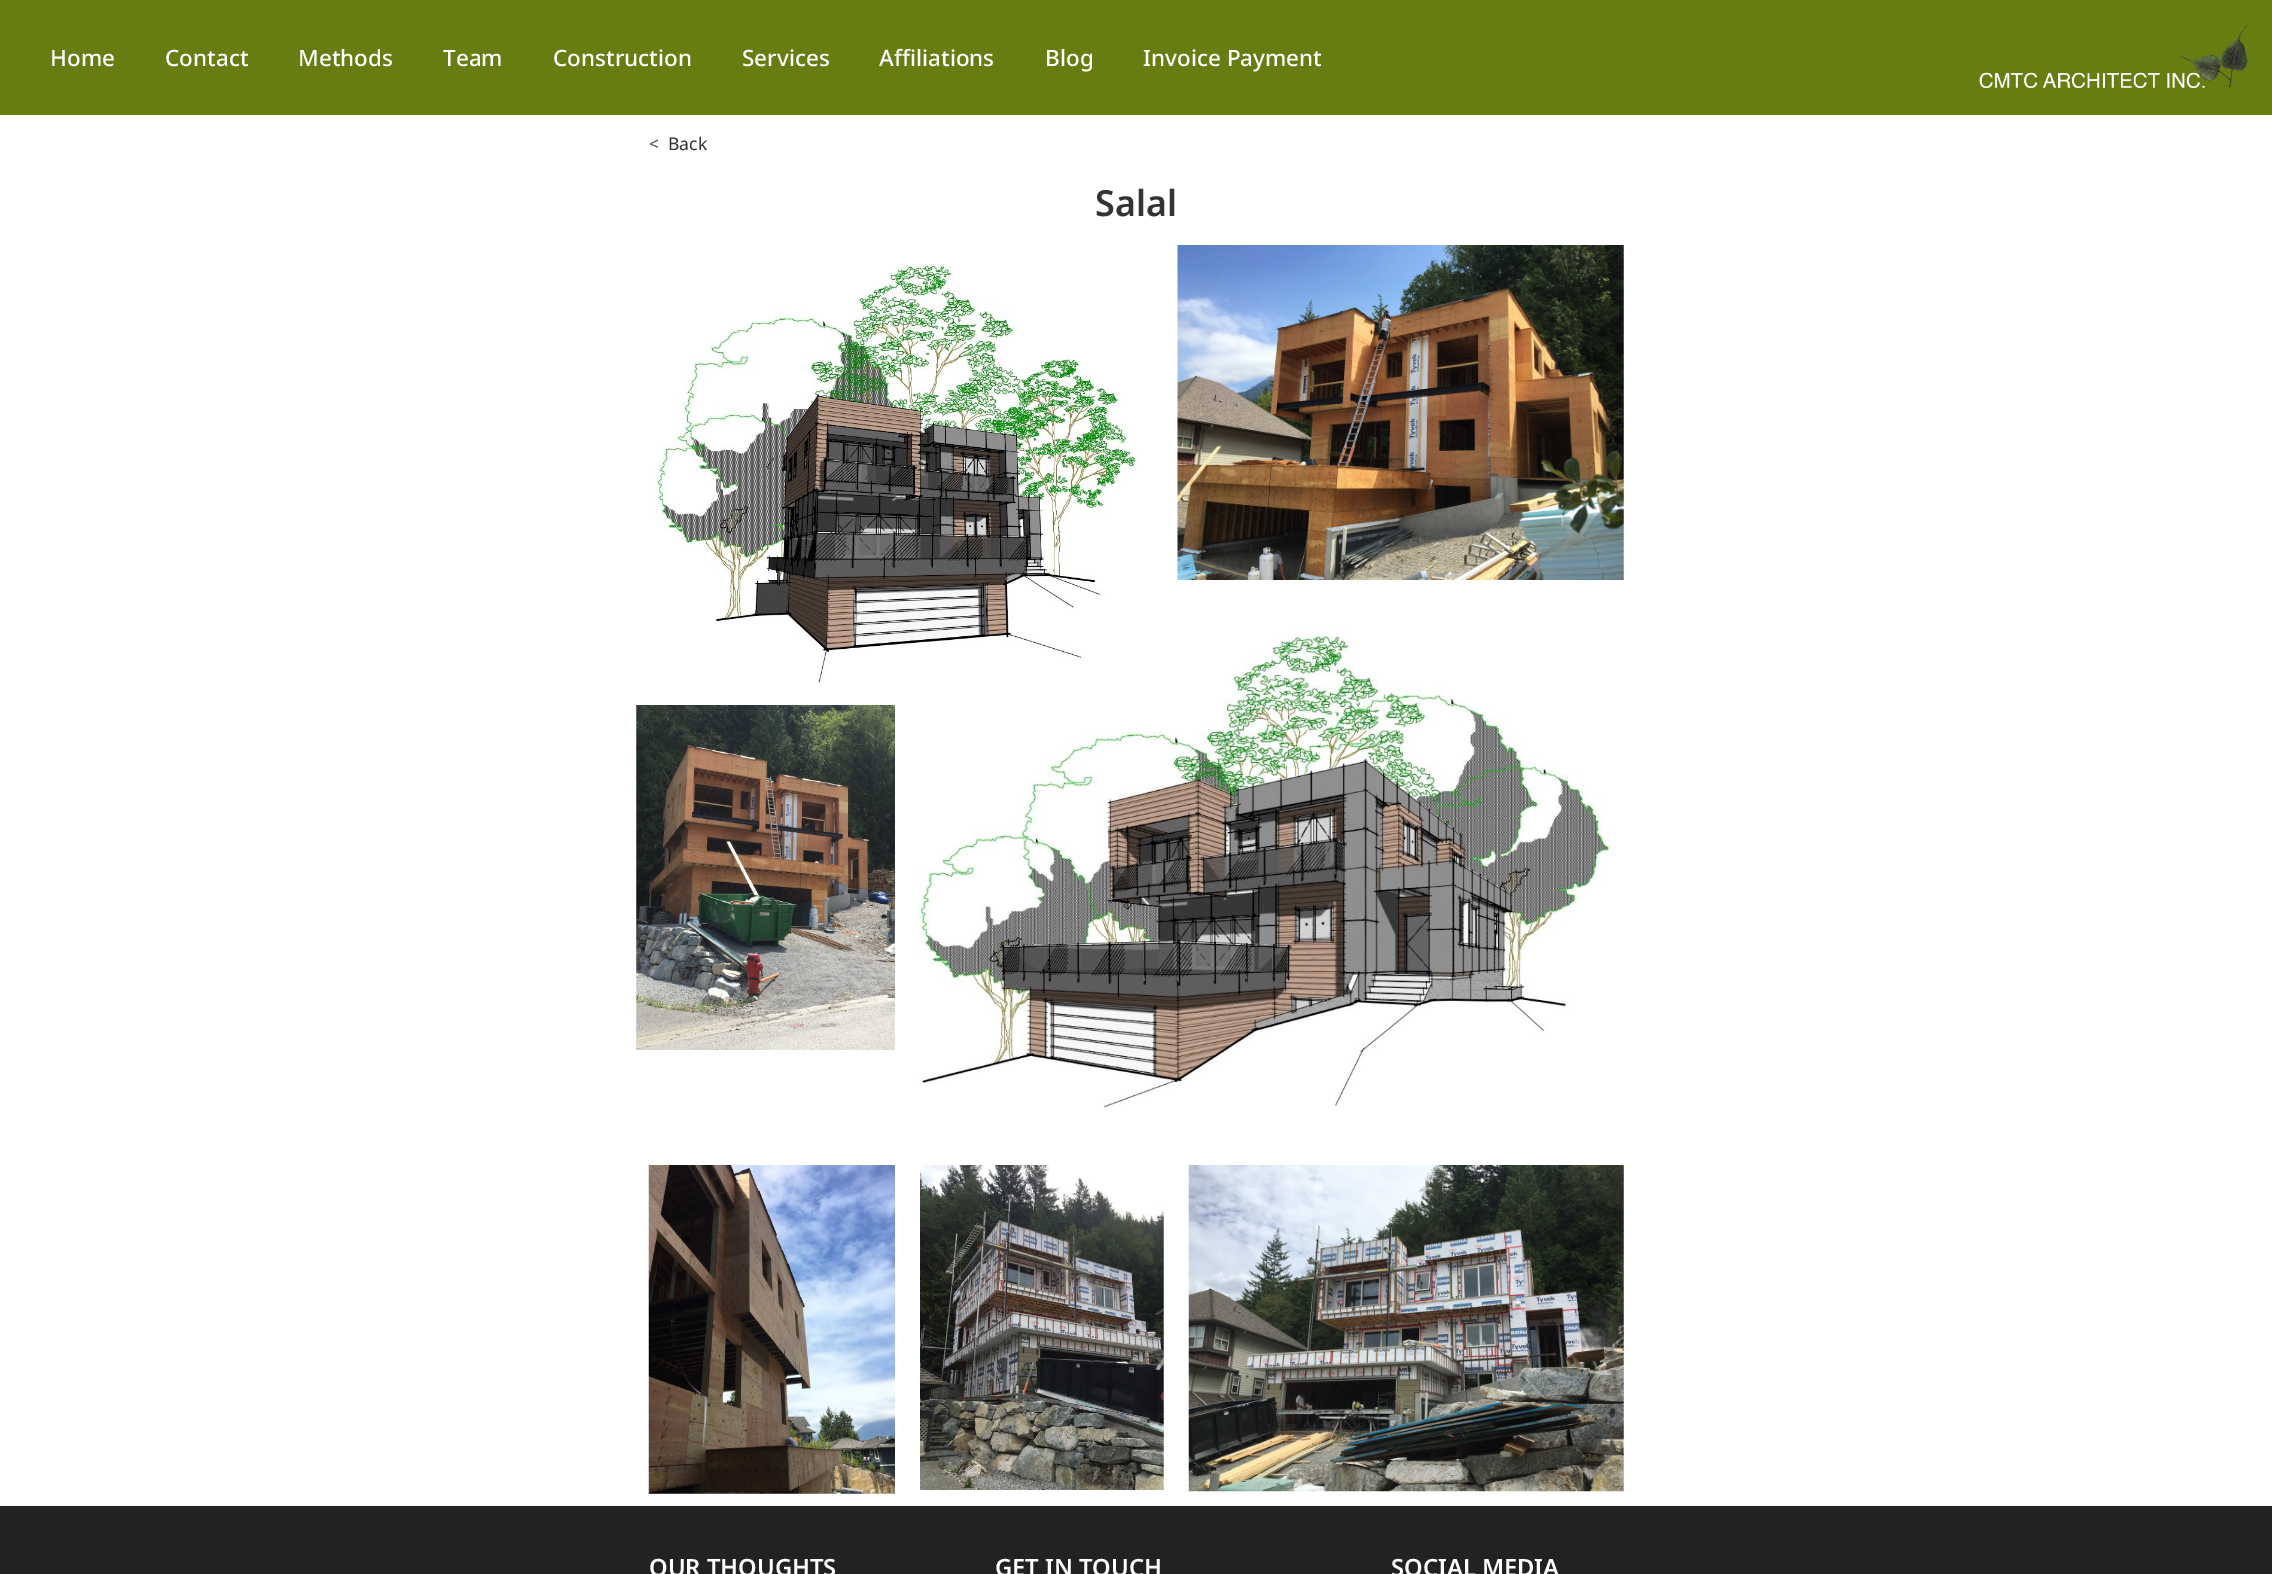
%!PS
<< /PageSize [2272 1574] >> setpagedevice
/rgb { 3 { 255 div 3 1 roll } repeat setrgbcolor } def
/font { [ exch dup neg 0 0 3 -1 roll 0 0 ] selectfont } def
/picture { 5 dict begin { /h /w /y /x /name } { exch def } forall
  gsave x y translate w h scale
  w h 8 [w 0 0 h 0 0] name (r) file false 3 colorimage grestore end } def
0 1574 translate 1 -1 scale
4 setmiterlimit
255 255 255 rgb
0 0 2272 1574 rectfill
102 125 18 rgb
0 0 2272 115 rectfill
(img/1.rgb) 1979 25 269 63 picture
(img/5.rgb) 918 630 695 480 picture
(img/2.rgb) 654 264 483 421 picture
(img/3.rgb) 1177 245 447 335 picture
(img/4.rgb) 636 705 259 345 picture
(img/6.rgb) 648 1165 247 329 picture
(img/7.rgb) 920 1165 244 325 picture
(img/8.rgb) 1188 1165 436 327 picture
34 34 34 rgb
0 1506 2272 68 rectfill
/NotoSans-Medium 22.5 font
255 255 255 rgb
[
  [(Home) 50 66]
  [(Contact) 165 66]
  [(Methods) 298 66]
  [(Team) 443 66]
  [(Construction) 553 66]
  [(Services) 742 66]
  [(Affiliations) 879 66]
  [(Blog) 1045 66]
  [(Invoice Payment) 1143 66]
] { aload pop moveto show } forall
/NotoSans-Regular 17.5 font
74 74 74 rgb
649 150 moveto (<) show
51 51 51 rgb
668 150 moveto (Back) show
/NotoSans-SemiBold 36 font
1095 216 moveto (Salal) show
/NotoSans-SemiBold 23.75 font
255 255 255 rgb
[
  [(OUR THOUGHTS) 649 1576]
  [(GET IN TOUCH) 995 1576]
  [(SOCIAL MEDIA) 1391 1576]
] { aload pop moveto show } forall
showpage
